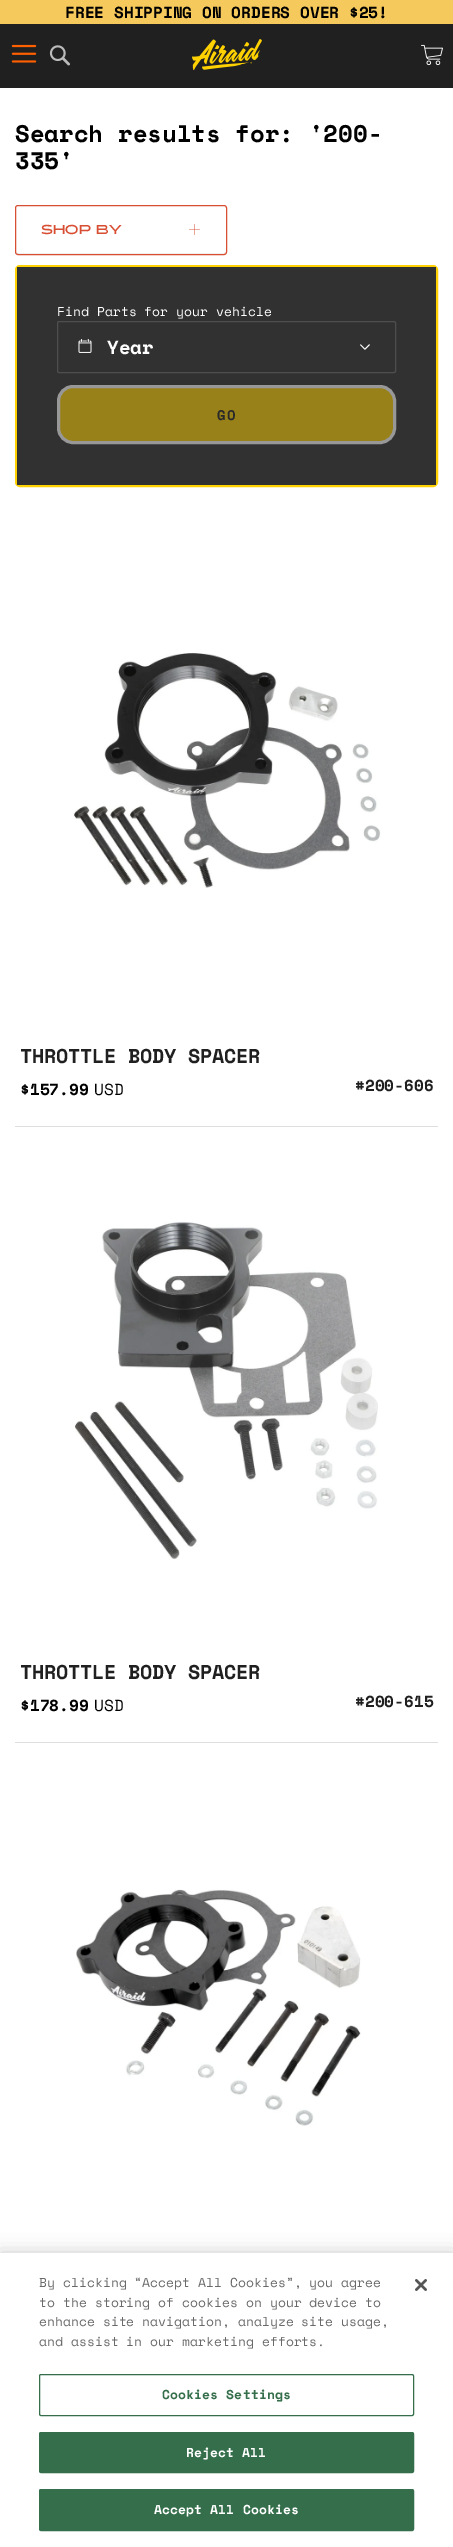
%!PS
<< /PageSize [453 2547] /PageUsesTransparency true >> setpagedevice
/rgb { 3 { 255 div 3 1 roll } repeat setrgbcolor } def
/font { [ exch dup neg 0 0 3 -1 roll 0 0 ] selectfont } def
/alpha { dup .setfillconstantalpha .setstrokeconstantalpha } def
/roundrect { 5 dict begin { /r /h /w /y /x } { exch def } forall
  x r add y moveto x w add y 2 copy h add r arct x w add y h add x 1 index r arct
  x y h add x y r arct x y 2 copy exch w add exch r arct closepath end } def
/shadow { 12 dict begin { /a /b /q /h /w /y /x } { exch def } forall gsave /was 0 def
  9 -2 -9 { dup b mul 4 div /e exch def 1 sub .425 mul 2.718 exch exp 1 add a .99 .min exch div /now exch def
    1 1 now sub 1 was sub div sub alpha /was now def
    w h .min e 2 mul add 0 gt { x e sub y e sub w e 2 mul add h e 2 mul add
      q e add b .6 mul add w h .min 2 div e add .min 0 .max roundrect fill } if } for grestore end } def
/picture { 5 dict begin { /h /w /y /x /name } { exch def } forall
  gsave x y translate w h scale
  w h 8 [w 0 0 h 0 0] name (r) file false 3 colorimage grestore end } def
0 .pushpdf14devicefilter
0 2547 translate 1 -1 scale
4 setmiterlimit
255 255 255 rgb
0 0 453 2547 rectfill
246 201 92 rgb
0 0 453 24 rectfill
32 32 32 rgb
0 24 453 64 rectfill
(img/1.rgb) 11 44 26 19 picture
(img/2.rgb) 49 45 22 21 picture
(img/3.rgb) 192 39 70 31 picture
(img/4.rgb) 421 44 22 22 picture
239 239 239 rgb
16 251 moveto 16 252 16 254 18 254 curveto 224 254 lineto 226 254 226 252 226 251 curveto 226 252 225 253 224 253 curveto 18 253 lineto 17 253 16 252 16 251 curveto closepath fill
215 78 51 rgb
15.5 205.5 211 49 2.5 roundrect stroke
(img/5.rgb) 189 224 11 11 picture
255 209 0 rgb
2 setlinewidth
16 266 421 220 4 roundrect stroke
49 49 49 rgb
17 267 419 218 rectfill
78 78 78 rgb
1 setlinewidth
57.5 321.5 338 51 1.5 roundrect stroke
(img/6.rgb) 78 339 14 14 picture
(img/7.rgb) 360 344 10 6 picture
152 129 25 rgb
58.5 386.5 336 56 14.5 roundrect gsave fill grestore
152 152 152 rgb
3 setlinewidth
stroke
222 222 222 rgb
15 1126 423 1 rectfill
(img/8.rgb) 73 653 308 235 picture
15 1742 423 1 rectfill
(img/9.rgb) 74 1221 304 339 picture
(img/10.rgb) 76 1889 285 237 picture
0 0 0 rgb
0 2253 453 294 0 9 0.2 shadow
255 255 255 rgb
0 2253 453 294 rectfill
52 110 74 rgb
1 setlinewidth
39.5 2374.5 374 41 1.5 roundrect stroke
39.5 2432.5 374 40 1.5 roundrect gsave fill grestore
stroke
39.5 2489.5 374 41 1.5 roundrect gsave fill grestore
stroke
(img/11.rgb) 415 2279 12 12 picture
/SpaceMono-Bold 16 font
0 0 0 rgb
65 18 moveto (FREE SHIPPING ON ORDERS OVER $25!) show
/SpaceMono-Bold 24 font
15 142 moveto (Search results for: '200-) show
15 169 moveto (335') show
/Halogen-Bold 13 font
215 78 51 rgb
41 234 moveto (SHOP BY) show
/SpaceMono-Regular 13 font
255 255 255 rgb
57 316 moveto (Find Parts for your vehicle) show
/SpaceMono-Bold 19 font
107 354 moveto (Year) show
/SpaceMono-Bold 14 font
41 41 41 rgb
217 420 moveto 1 0 (GO) ashow
/SpaceMono-Bold 20 font
32 32 32 rgb
20 1063 moveto -0.25 0 (THROTTLE BODY SPACER) ashow
/SpaceMono-Bold 16 font
0 0 0 rgb
20 1095 moveto ($157.99) show
/SpaceMono-Regular 16 font
94 1095 moveto (USD) show
/SpaceMono-Bold 16 font
32 32 32 rgb
355 1091 moveto (#200-606) show
/SpaceMono-Bold 20 font
20 1679 moveto -0.25 0 (THROTTLE BODY SPACER) ashow
/SpaceMono-Bold 16 font
0 0 0 rgb
20 1711 moveto ($178.99) show
/SpaceMono-Regular 16 font
94 1711 moveto (USD) show
/SpaceMono-Bold 16 font
32 32 32 rgb
355 1707 moveto (#200-615) show
/SpaceMono-Regular 13 font
105 105 105 rgb
[
  [(By clicking “Accept All Cookies”, you agree) 39 2287]
  [(to the storing of cookies on your device to) 39 2307]
  [(enhance site navigation, analyze site usage,) 39 2326]
  [(and assist in our marketing efforts.) 39 2346]
] { aload pop moveto show } forall
/SpaceMono-Bold 13 font
52 110 74 rgb
162 2399 moveto 0.1 0 (Cookies Settings) ashow
255 255 255 rgb
186 2457 moveto 0.1 0 (Reject All) ashow
154 2514 moveto 0.1 0 (Accept All Cookies) ashow
.poppdf14devicefilter showpage
